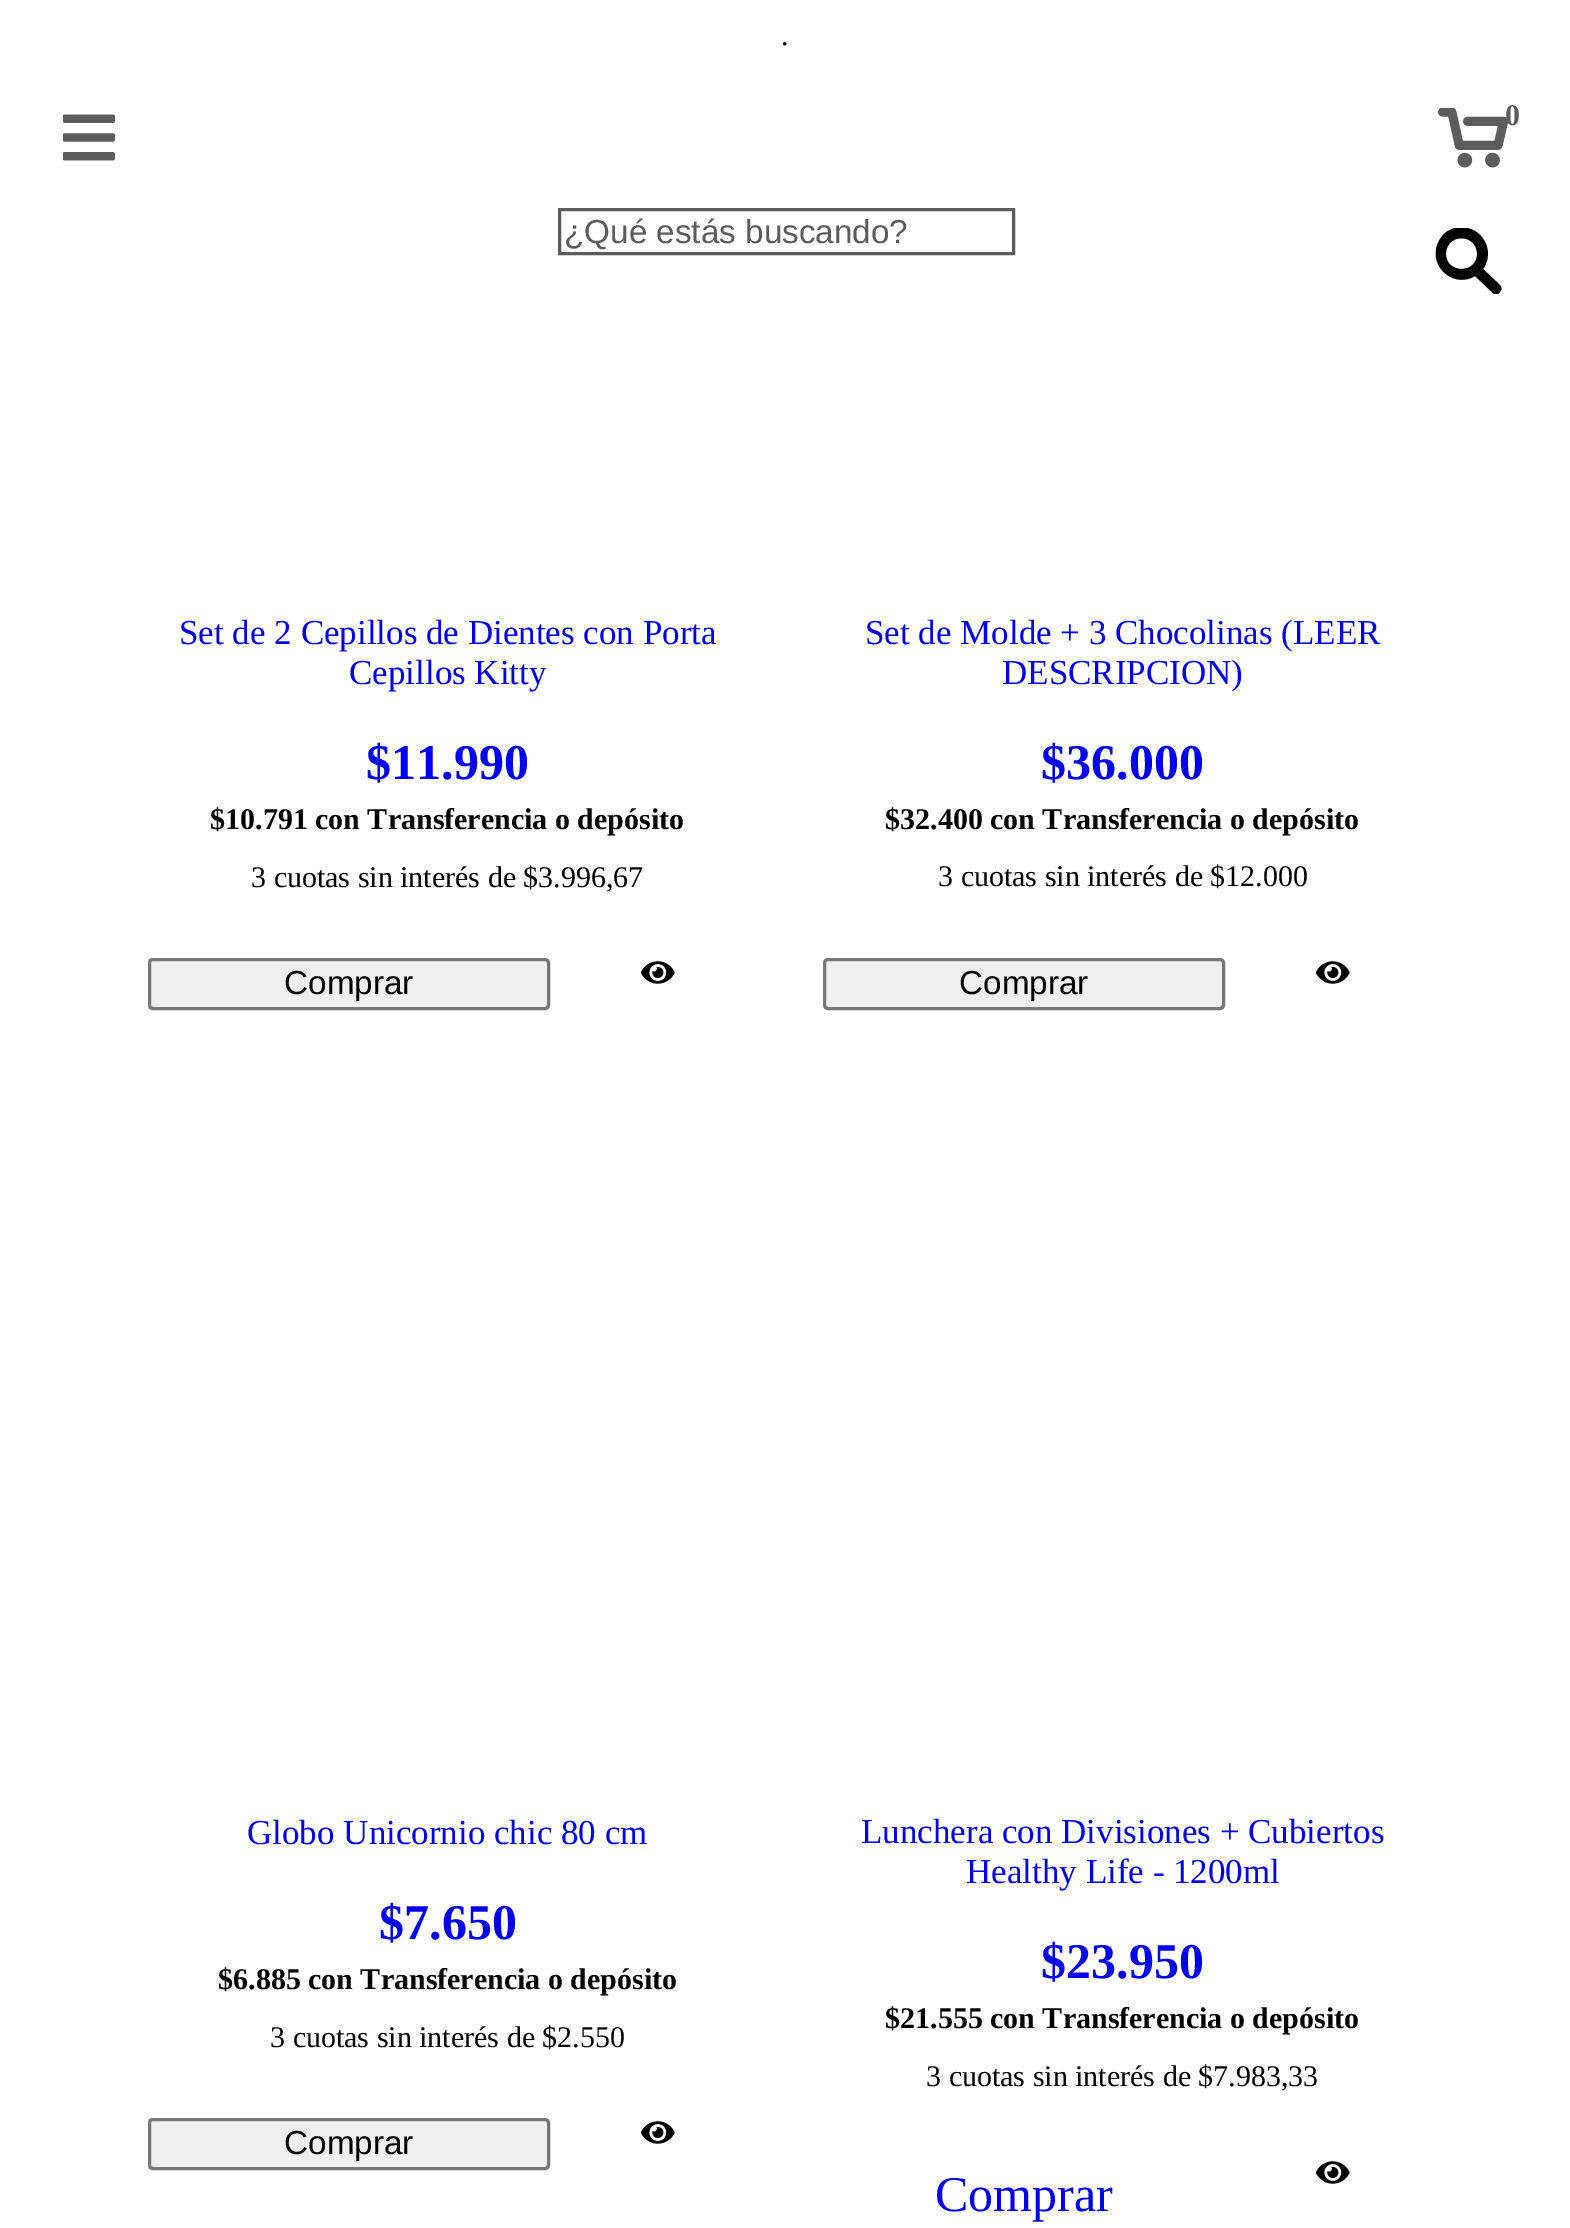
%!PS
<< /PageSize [1570 2228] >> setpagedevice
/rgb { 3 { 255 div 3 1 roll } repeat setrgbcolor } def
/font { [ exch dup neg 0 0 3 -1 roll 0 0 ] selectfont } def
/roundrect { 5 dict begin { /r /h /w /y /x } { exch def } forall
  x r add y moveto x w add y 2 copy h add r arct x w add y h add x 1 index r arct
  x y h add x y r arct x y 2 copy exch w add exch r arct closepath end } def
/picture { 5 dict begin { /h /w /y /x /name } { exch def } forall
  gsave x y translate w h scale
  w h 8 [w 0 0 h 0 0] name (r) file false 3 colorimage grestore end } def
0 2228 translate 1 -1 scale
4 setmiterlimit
255 255 255 rgb
0 0 1570 2228 rectfill
(img/1.rgb) 63 114 52 47 picture
(img/2.rgb) 1438 108 71 60 picture
92 92 92 rgb
3 setlinewidth
559.5 209.5 454 44 rectstroke
gsave
1435 228 67 66 rectclip
0 0 0 rgb
1500 285 moveto 1483 269 lineto 1491 258 1489 243 1479 234 curveto 1469 225 1453 225 1444 234 curveto 1434 244 1433 259 1441 269 curveto 1449 280 1464 283 1475 276 curveto 1494 294 lineto 1499 296 1504 289 1500 285 curveto closepath 1446 254 moveto 1446 233 1477 233 1477 254 curveto 1477 274 1446 274 1446 254 curveto closepath fill
grestore
239 239 239 rgb
149.5 959.5 399 49 3.5 roundrect gsave fill grestore
118 118 118 rgb
stroke
(img/3.rgb) 641 961 34 23 picture
239 239 239 rgb
824.5 959.5 399 49 3.5 roundrect gsave fill grestore
118 118 118 rgb
stroke
(img/3.rgb) 1316 961 34 23 picture
239 239 239 rgb
149.5 2119.5 399 49 3.5 roundrect gsave fill grestore
118 118 118 rgb
stroke
(img/3.rgb) 641 2121 34 23 picture
(img/3.rgb) 1316 2161 34 23 picture
/LiberationSerif-Regular 30 font
0 0 0 rgb
781 45 moveto (.) show
/LiberationSerif-Bold 30 font
92 92 92 rgb
1505 125 moveto (0) show
/LiberationSans-Regular 33.25 font
564 243 moveto (¿Qué estás buscando?) show
/LiberationSerif-Regular 35 font
0 0 238 rgb
179 644 moveto (Set de 2 Cepillos de Dientes con Porta) show
349 684 moveto (Cepillos Kitty) show
/LiberationSerif-Bold 50 font
366 779 moveto ($11.990) show
/LiberationSerif-Bold 30 font
0 0 0 rgb
210 829 moveto ($10.791 con Transferencia o depósito) show
/LiberationSerif-Regular 30 font
251 887 moveto (3 cuotas sin interés de $3.996,67) show
/LiberationSans-Regular 33.25 font
284 994 moveto (Comprar) show
/LiberationSerif-Regular 35 font
0 0 238 rgb
865 644 moveto (Set de Molde + 3 Chocolinas \(LEER) show
1002 684 moveto (DESCRIPCION\)) show
/LiberationSerif-Bold 50 font
1041 779 moveto ($36.000) show
/LiberationSerif-Bold 30 font
0 0 0 rgb
885 829 moveto ($32.400 con Transferencia o depósito) show
/LiberationSerif-Regular 30 font
938 886 moveto (3 cuotas sin interés de $12.000) show
/LiberationSans-Regular 33.25 font
959 994 moveto (Comprar) show
/LiberationSerif-Regular 35 font
0 0 238 rgb
247 1844 moveto (Globo Unicornio chic 80 cm) show
/LiberationSerif-Bold 50 font
379 1939 moveto ($7.650) show
/LiberationSerif-Bold 30 font
0 0 0 rgb
218 1989 moveto ($6.885 con Transferencia o depósito) show
/LiberationSerif-Regular 30 font
270 2047 moveto (3 cuotas sin interés de $2.550) show
/LiberationSans-Regular 33.25 font
284 2154 moveto (Comprar) show
/LiberationSerif-Regular 35 font
0 0 238 rgb
861 1843 moveto (Lunchera con Divisiones + Cubiertos) show
966 1883 moveto (Healthy Life - 1200ml) show
/LiberationSerif-Bold 50 font
1041 1978 moveto ($23.950) show
/LiberationSerif-Bold 30 font
0 0 0 rgb
885 2028 moveto ($21.555 con Transferencia o depósito) show
/LiberationSerif-Regular 30 font
926 2086 moveto (3 cuotas sin interés de $7.983,33) show
/LiberationSerif-Regular 50 font
0 0 238 rgb
935 2211 moveto (Comprar) show
showpage
